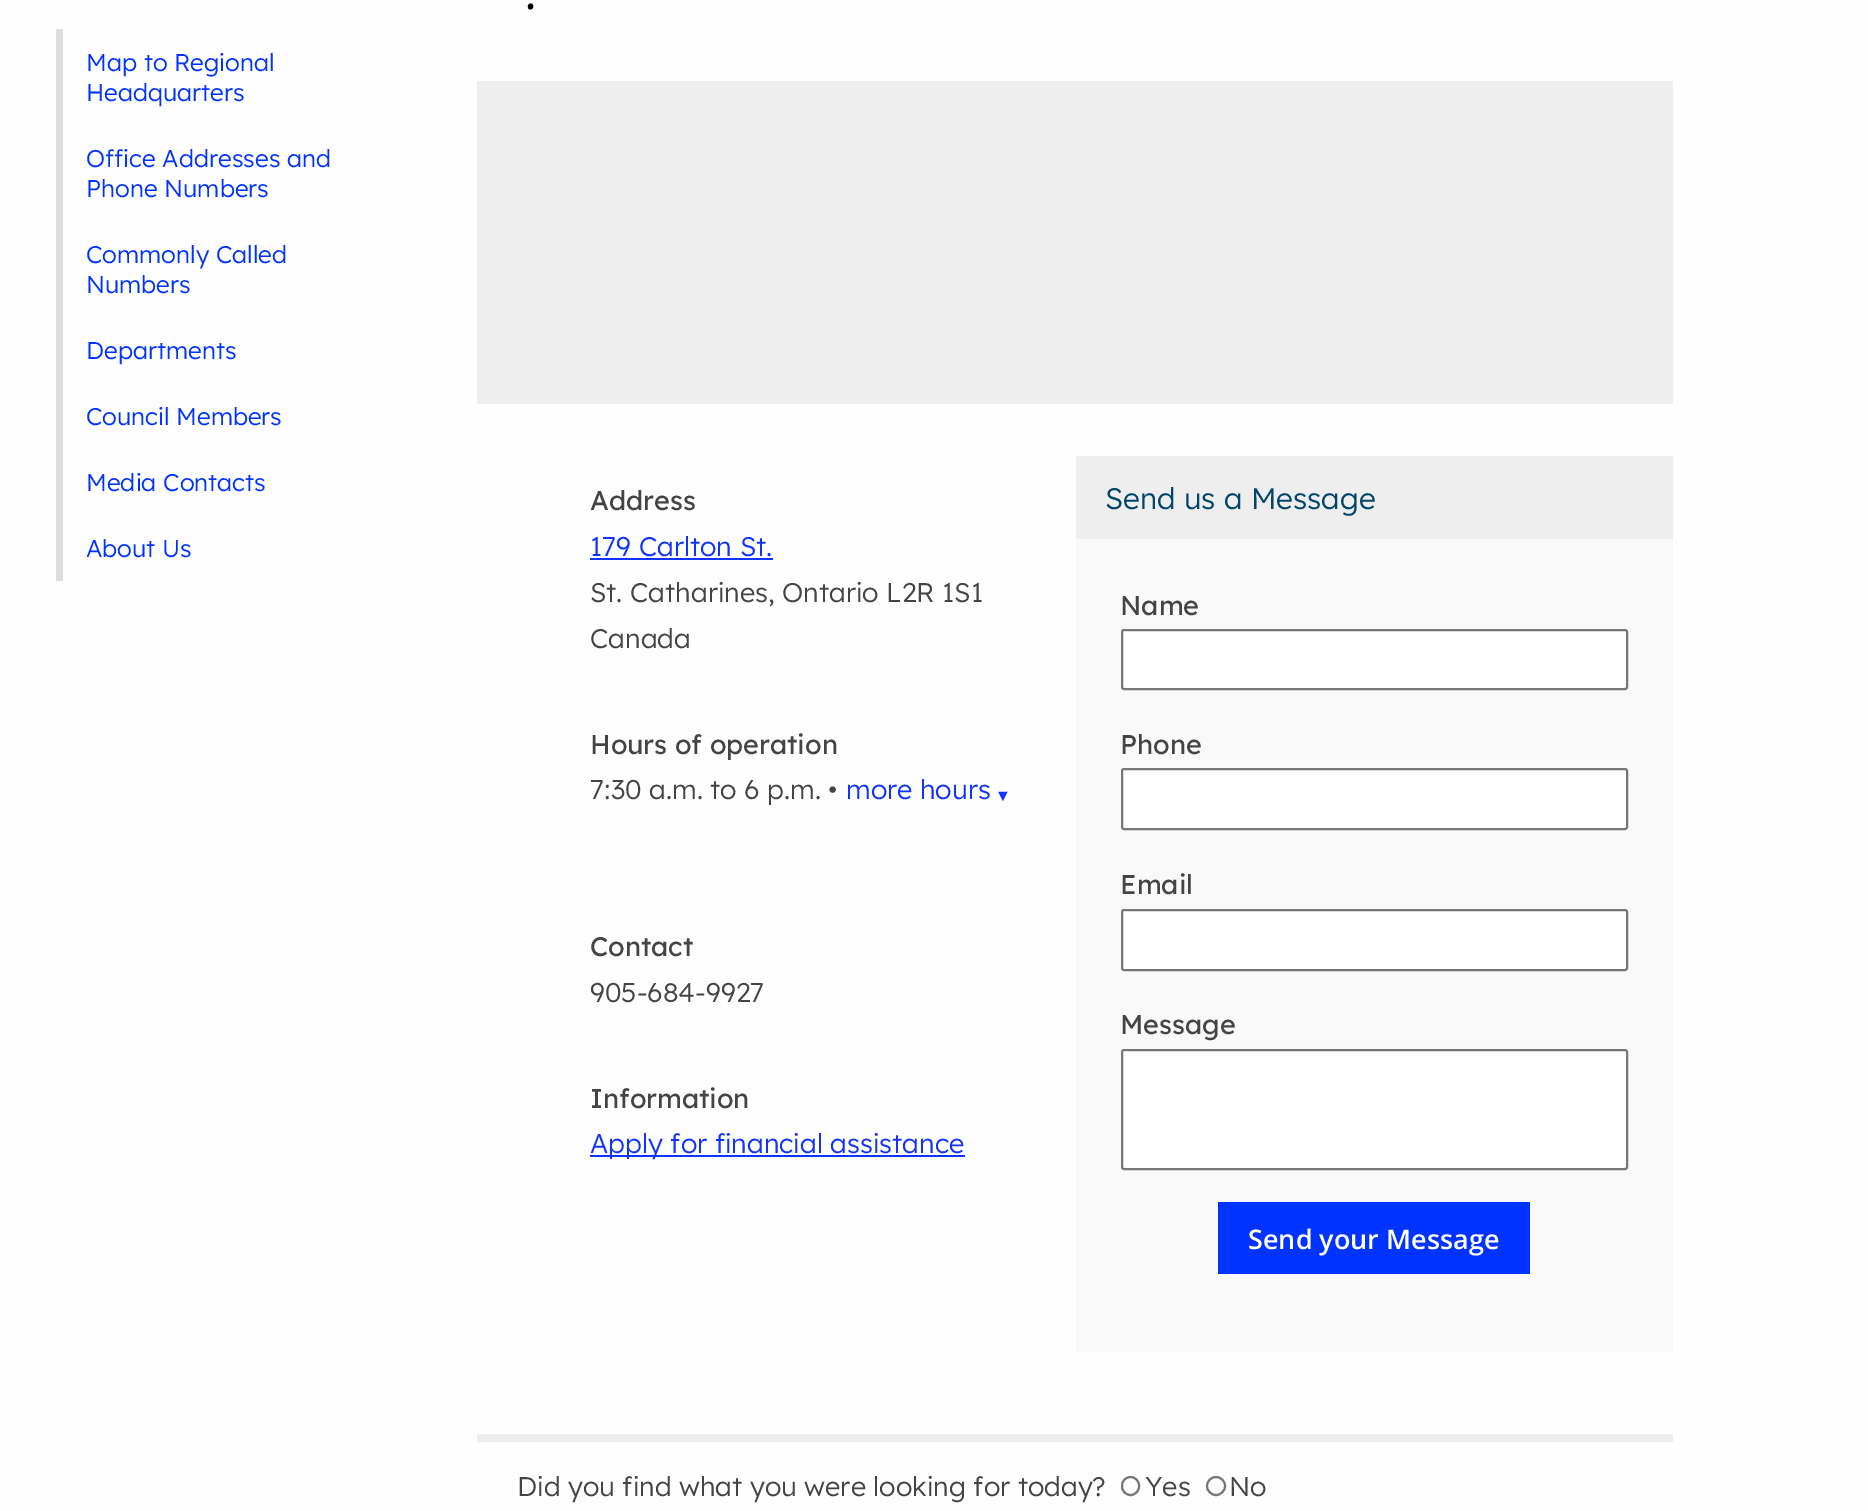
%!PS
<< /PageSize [1868 1511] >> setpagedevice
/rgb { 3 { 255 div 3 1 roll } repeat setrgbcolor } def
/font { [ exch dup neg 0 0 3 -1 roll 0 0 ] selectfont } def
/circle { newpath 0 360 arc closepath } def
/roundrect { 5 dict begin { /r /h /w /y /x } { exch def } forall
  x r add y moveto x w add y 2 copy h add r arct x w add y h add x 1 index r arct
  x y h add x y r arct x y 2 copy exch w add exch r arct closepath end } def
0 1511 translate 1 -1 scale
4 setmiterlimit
254 254 254 rgb
0 0 1868 1511 rectfill
[
  [56 29 7 552 221 221 221]
  [477 81 1196 323 238 238 238]
  [590 558 183 2 17 51 255]
  [590 1155 375 2 17 51 255]
  [1076 539 597 813 249 249 249]
  [1076 456 597 83 238 238 238]
] { aload pop rgb rectfill } forall
255 255 255 rgb
1122 630 505 59 2 roundrect gsave fill grestore
118 118 118 rgb
2 setlinewidth
stroke
255 255 255 rgb
1122 769 505 60 2 roundrect gsave fill grestore
118 118 118 rgb
stroke
255 255 255 rgb
1122 910 505 60 2 roundrect gsave fill grestore
118 118 118 rgb
stroke
255 255 255 rgb
1122 1050 505 119 2 roundrect gsave fill grestore
118 118 118 rgb
stroke
0 51 255 rgb
1218 1202 312 72 rectfill
238 238 238 rgb
477 1434 1196 8 rectfill
118 118 118 rgb
1122 1477 17 18 8.5 roundrect stroke
1216 1486 9 circle stroke
/Lexend-Regular 24.25 font
0 51 255 rgb
[
  [(Map to Regional) 86 71]
  [(Headquarters) 86 101]
  [(Office Addresses and) 86 167]
  [(Phone Numbers) 86 197]
  [(Commonly Called) 86 263]
  [(Numbers) 86 293]
  [(Departments) 86 359]
  [(Council Members) 86 425]
  [(Media Contacts) 86 491]
  [(About Us) 86 557]
] { aload pop moveto show } forall
/Lexend-Regular 49 font
0 0 0 rgb
525 9 moveto (.) show
/Lexend-Medium 27 font
68 68 68 rgb
590 510 moveto (Address) show
/Lexend-Regular 27 font
17 51 255 rgb
590 556 moveto (179 Carlton St.) show
68 68 68 rgb
590 602 moveto (St. Catharines, Ontario L2R 1S1) show
590 648 moveto (Canada) show
/Lexend-Medium 27 font
590 754 moveto (Hours of operation) show
/Lexend-Regular 27 font
590 799 moveto (7:30 a.m. to 6 p.m. •) show
17 51 255 rgb
846 799 moveto (more hours) show
/LiberationSans-Regular 16 font
995 801 moveto (▼) show
/Lexend-Medium 27 font
68 68 68 rgb
590 956 moveto (Contact) show
/Lexend-Regular 27 font
590 1002 moveto (905-684-9927) show
/Lexend-Medium 27 font
590 1108 moveto (Information) show
/Lexend-Regular 27 font
17 51 255 rgb
590 1153 moveto (Apply for financial assistance) show
/Lexend-Regular 29.75 font
1 69 104 rgb
1105 509 moveto (Send us a Message) show
/Lexend-Medium 27 font
68 68 68 rgb
[
  [(Name) 1120 615]
  [(Phone) 1120 754]
  [(Email) 1120 894]
  [(Message) 1120 1034]
] { aload pop moveto show } forall
/OpenSans-SemiBold 27 font
255 255 255 rgb
1248 1249 moveto (Send your Message) show
/Lexend-Regular 27 font
68 68 68 rgb
[
  [(Did you find what you were looking for today?) 517 1496]
  [(Yes) 1145 1496]
  [(No) 1229 1496]
] { aload pop moveto show } forall
showpage
